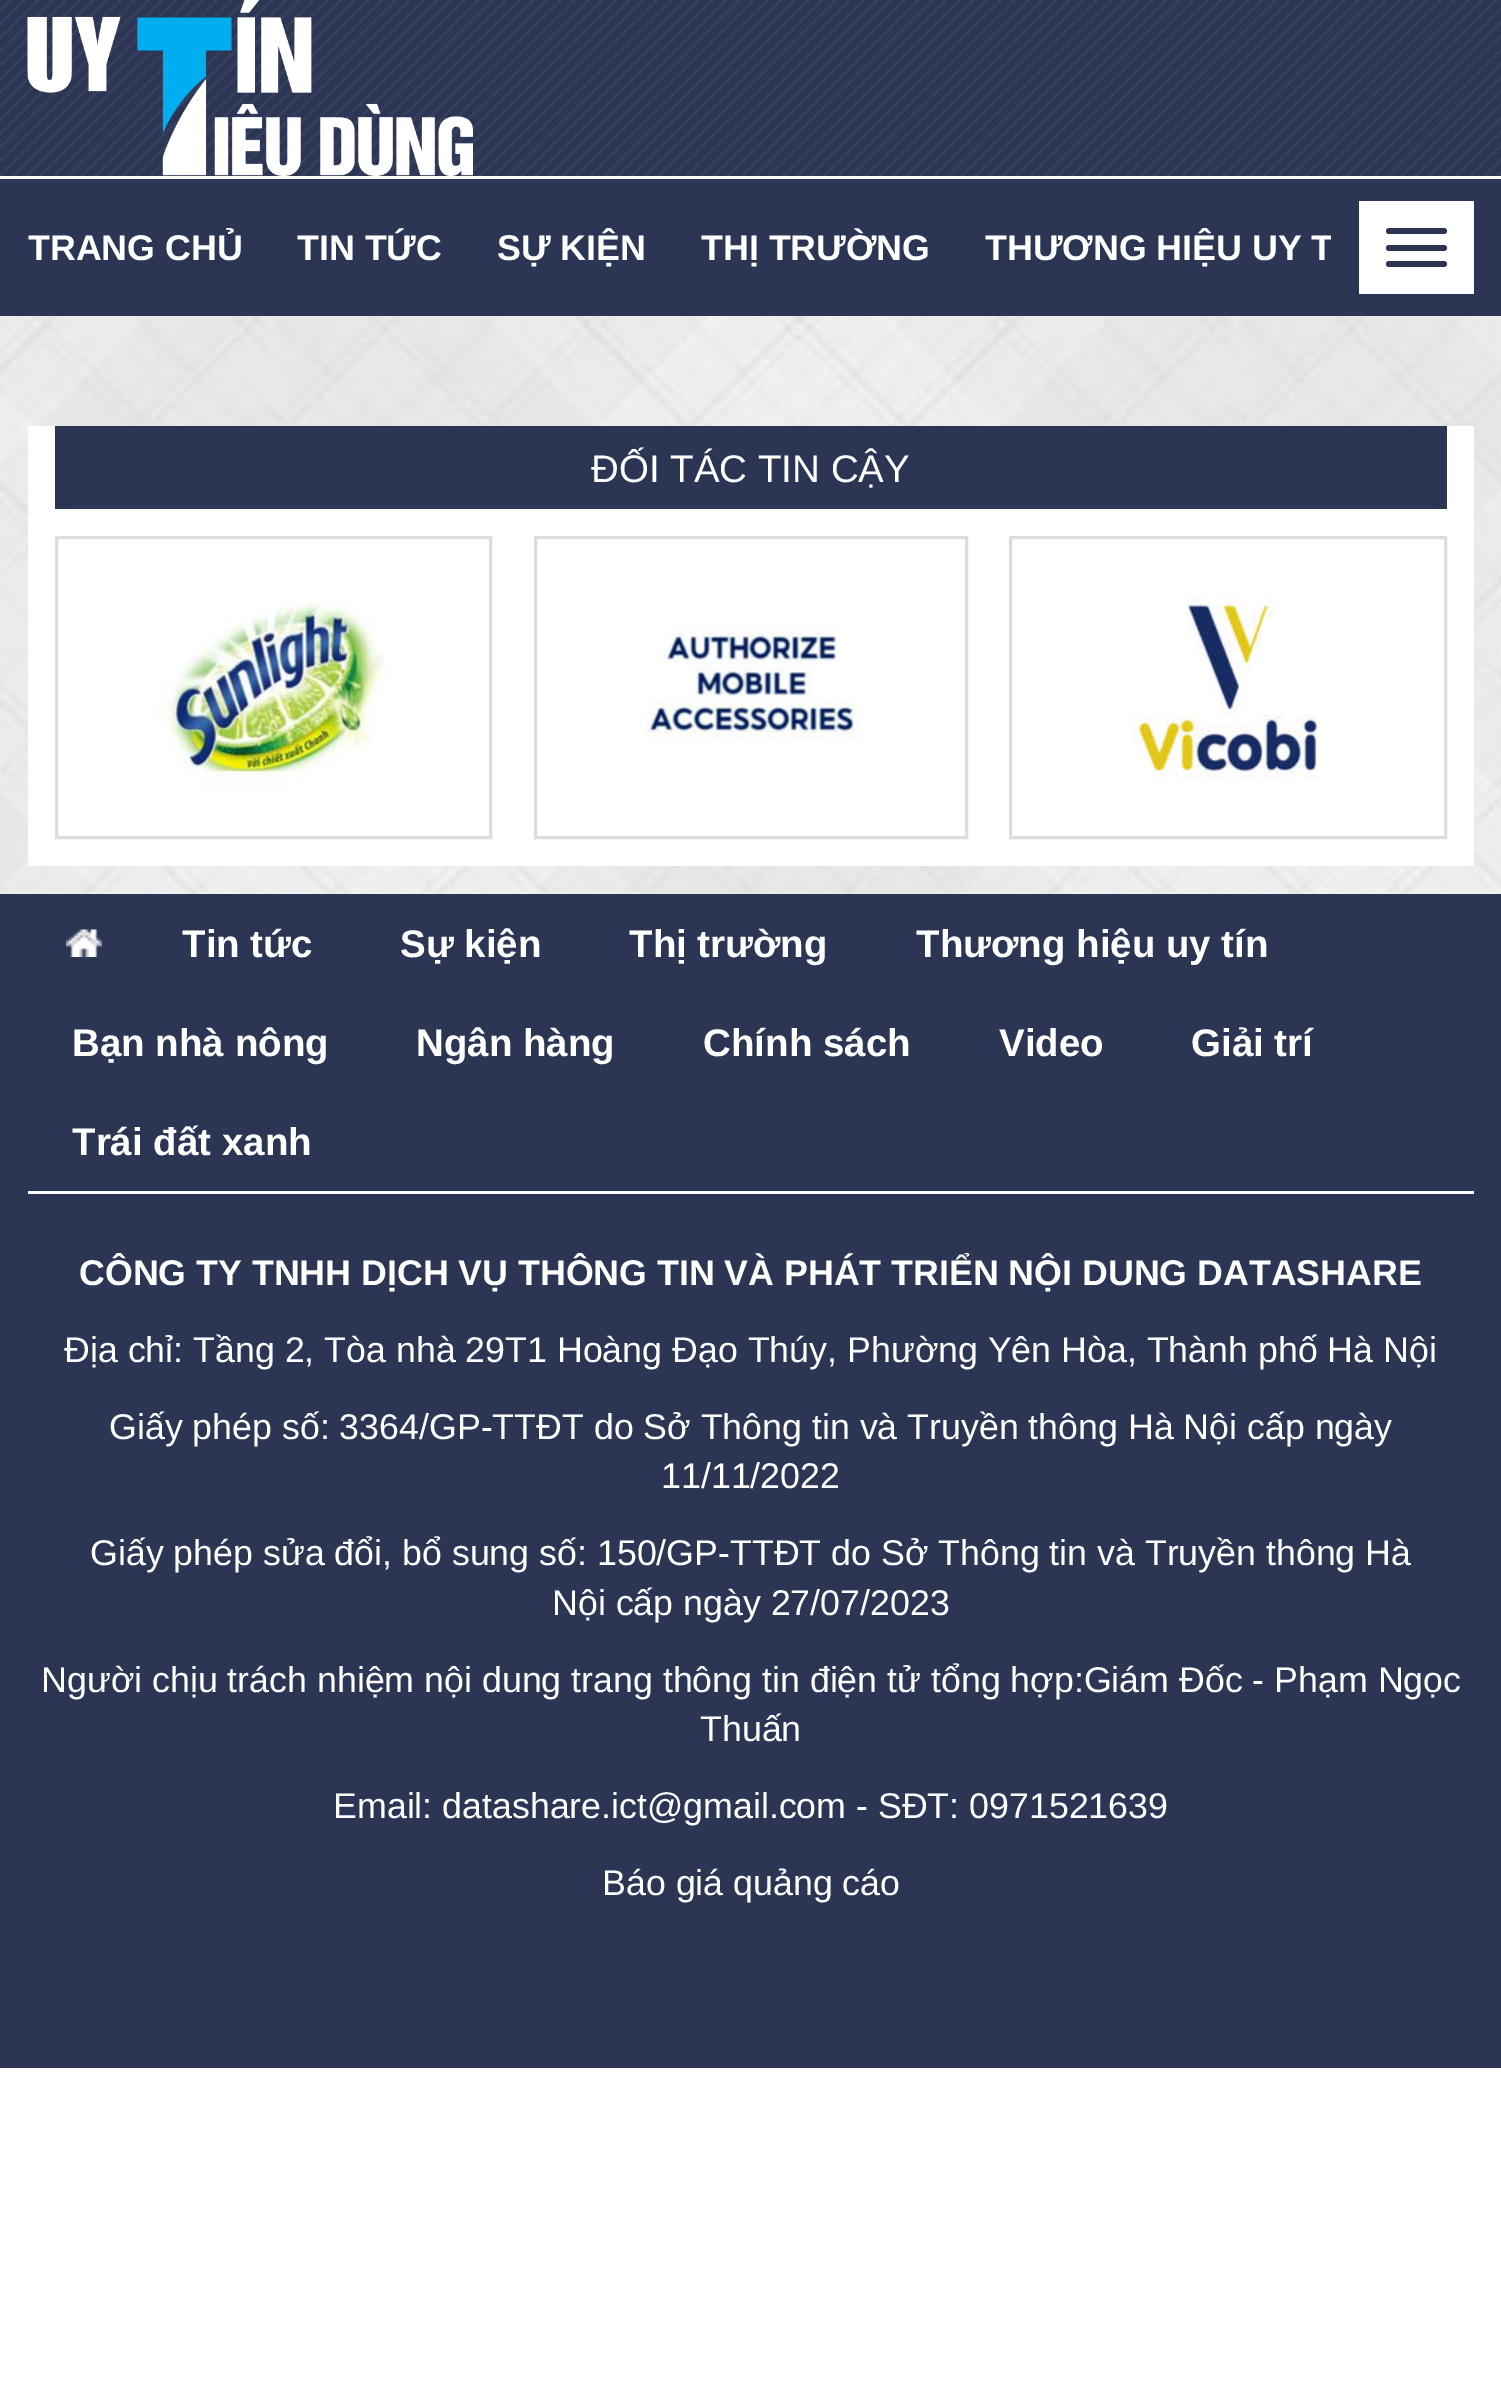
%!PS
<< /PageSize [1501 2383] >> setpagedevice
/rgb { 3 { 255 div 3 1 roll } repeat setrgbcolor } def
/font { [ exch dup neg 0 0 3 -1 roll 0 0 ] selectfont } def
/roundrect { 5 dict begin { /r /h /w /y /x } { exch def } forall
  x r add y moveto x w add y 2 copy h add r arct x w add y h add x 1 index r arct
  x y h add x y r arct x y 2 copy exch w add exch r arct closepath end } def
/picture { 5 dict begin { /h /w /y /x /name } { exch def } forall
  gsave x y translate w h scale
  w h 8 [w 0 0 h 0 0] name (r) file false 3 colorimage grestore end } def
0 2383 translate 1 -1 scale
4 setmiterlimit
255 255 255 rgb
0 0 1501 2383 rectfill
(img/1.rgb) 0 0 1501 176 picture
(img/2.rgb) 27 0 446 176 picture
44 53 84 rgb
0 179 1501 137 rectfill
255 255 255 rgb
1359 201 115 93 rectfill
44 53 84 rgb
1386 228 61 6 3 roundrect fill
1386 245 61 6 3 roundrect fill
1386 261 61 6 3 roundrect fill
(img/3.rgb) 0 316 1501 578 picture
255 255 255 rgb
28 426 1446 440 rectfill
44 53 84 rgb
55 426 1392 83 rectfill
221 221 221 rgb
3 setlinewidth
56.5 537.5 434 300 rectstroke
(img/4.rgb) 158 599 237 191 picture
535.5 537.5 431 300 rectstroke
(img/5.rgb) 646 625 214 115 picture
1010.5 537.5 435 300 rectstroke
(img/6.rgb) 1133 596 185 183 picture
44 53 84 rgb
0 894 1501 1174 rectfill
255 255 255 rgb
28 1191 1446 3 rectfill
(img/7.rgb) 66 929 36 28 picture
gsave
28 179 1303 137 rectclip
/LiberationSans-Bold 35.75 font
28 260 moveto (TRANG CHỦ) show
grestore
/LiberationSans-Bold 35.75 font
[
  [(TIN TỨC) 297 260]
  [(SỰ KIỆN) 497 260]
  [(THỊ TRƯỜNG) 701 260]
] { aload pop moveto show } forall
gsave
28 179 1303 137 rectclip
985 260 moveto (THƯƠNG HIỆU UY T) show
grestore
/LiberationSans-Regular 38.5 font
591 482 moveto (ĐỐI TÁC TIN CẬY) show
/LiberationSans-Bold 38.5 font
[
  [(Tin tức) 182 957]
  [(Sự kiện) 400 957]
  [(Thị trường) 629 957]
  [(Thương hiệu uy tín) 916 957]
  [(Bạn nhà nông) 72 1056]
  [(Ngân hàng) 416 1056]
  [(Chính sách) 703 1056]
  [(Video) 999 1056]
  [(Giải trí) 1191 1056]
  [(Trái đất xanh) 72 1155]
] { aload pop moveto show } forall
/LiberationSans-Bold 35.75 font
79 1285 moveto (CÔNG TY TNHH DỊCH VỤ THÔNG TIN VÀ PHÁT TRIỂN NỘI DUNG DATASHARE) show
/LiberationSans-Regular 35.75 font
[
  [(Địa chỉ: Tầng 2, Tòa nhà 29T1 Hoàng Đạo Thúy, Phường Yên Hòa, Thành phố Hà Nội) 64 1362]
  [(Giấy phép số: 3364/GP-TTĐT do Sở Thông tin và Truyền thông Hà Nội cấp ngày) 109 1439]
  [(11/11/2022) 661 1488]
  [(Giấy phép sửa đổi, bổ sung số: 150/GP-TTĐT do Sở Thông tin và Truyền thông Hà) 90 1565]
  [(Nội cấp ngày 27/07/2023) 552 1615]
  [(Người chịu trách nhiệm nội dung trang thông tin điện tử tổng hợp:Giám Đốc - Phạm Ngọc) 41 1692]
  [(Thuấn) 700 1741]
  [(Email: datashare.ict@gmail.com - SĐT: 0971521639) 333 1818]
  [(Báo giá quảng cáo) 602 1895]
] { aload pop moveto show } forall
showpage
